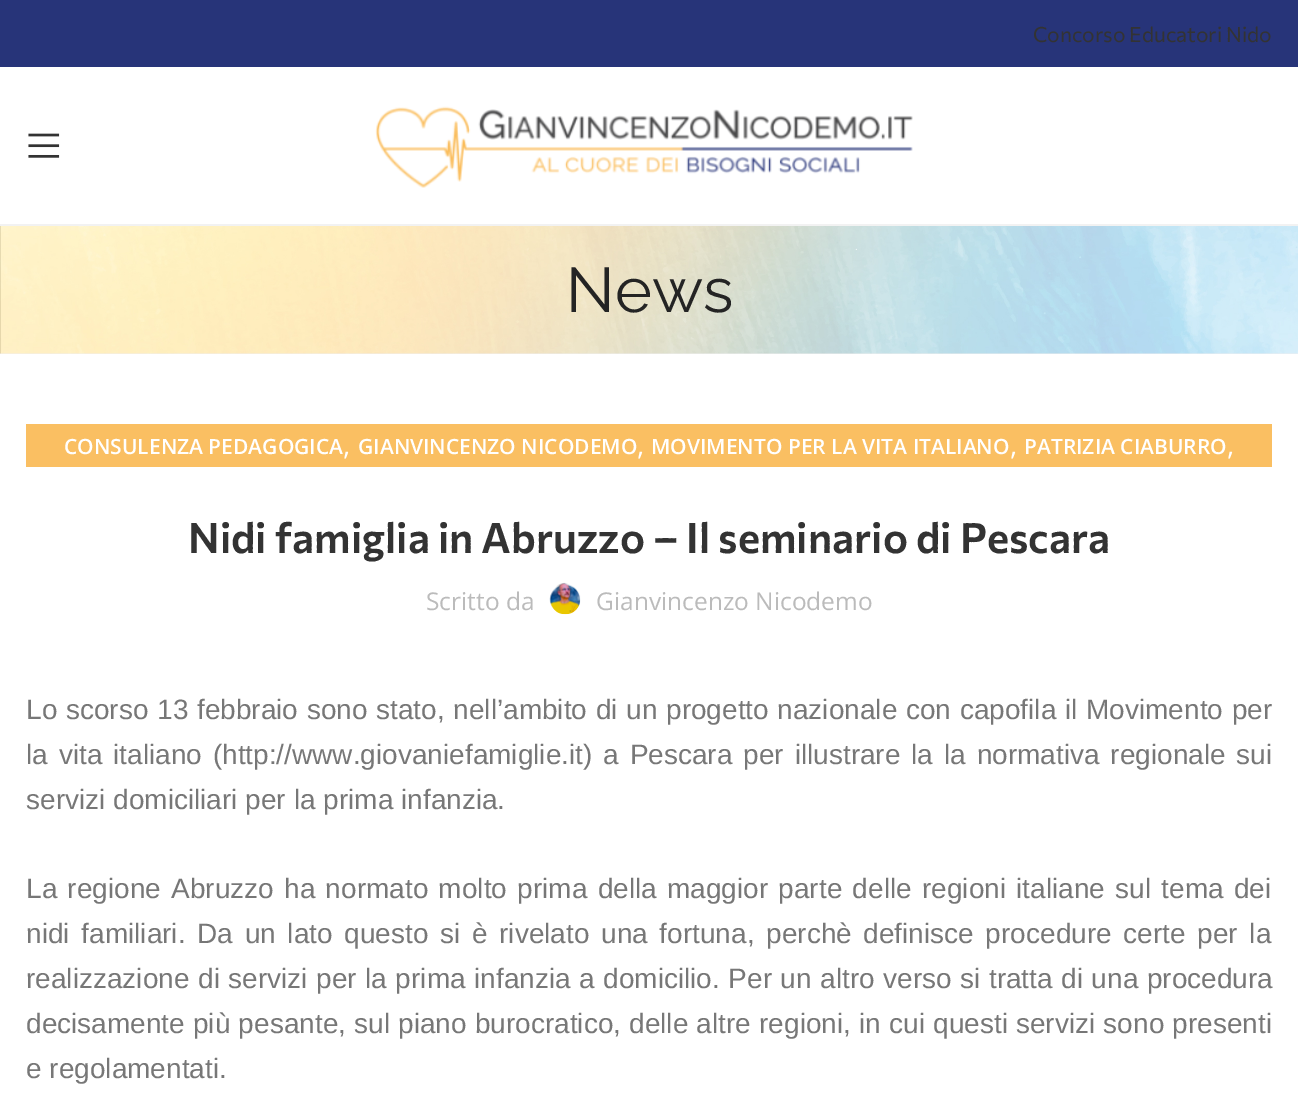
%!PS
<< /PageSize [1298 1094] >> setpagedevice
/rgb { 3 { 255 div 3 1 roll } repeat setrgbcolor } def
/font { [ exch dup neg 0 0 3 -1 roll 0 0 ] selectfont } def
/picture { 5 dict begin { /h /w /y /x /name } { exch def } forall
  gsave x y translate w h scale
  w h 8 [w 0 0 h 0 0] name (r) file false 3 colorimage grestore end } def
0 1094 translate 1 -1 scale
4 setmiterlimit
255 255 255 rgb
0 0 1298 1094 rectfill
39 52 121 rgb
0 0 1298 67 rectfill
242 242 242 rgb
0 224 1298 2 rectfill
(img/1.rgb) 28 133 32 25 picture
(img/2.rgb) 375 106 538 82 picture
240 240 240 rgb
0 353 1298 1 rectfill
(img/3.rgb) 0 226 1298 128 picture
250 191 98 rgb
26 424 1246 43 rectfill
(img/4.rgb) 549 582 32 33 picture
/Commissioner-Regular 21 font
51 51 51 rgb
1033 42 moveto (Concorso Educatori Nido) show
/Raleway-Regular 63 font
36 36 36 rgb
566 312 moveto (News) show
/OpenSans-SemiBold 21 font
255 255 255 rgb
64 454 moveto (CONSULENZA PEDAGOGICA) show
/OpenSans-Regular 28 font
343 455 moveto (,) show
/OpenSans-SemiBold 21 font
358 454 moveto (GIANVINCENZO NICODEMO) show
/OpenSans-Regular 28 font
637 455 moveto (,) show
/OpenSans-SemiBold 21 font
651 454 moveto (MOVIMENTO PER LA VITA ITALIANO) show
/OpenSans-Regular 28 font
1010 455 moveto (,) show
/OpenSans-SemiBold 21 font
1024 454 moveto (PATRIZIA CIABURRO) show
/OpenSans-Regular 28 font
1227 455 moveto (,) show
/Commissioner-SemiBold 42 font
51 51 51 rgb
188 553 moveto (Nidi famiglia in Abruzzo – Il seminario di Pescara) show
/OpenSans-Regular 24.5 font
187 187 187 rgb
426 610 moveto (Scritto da) show
596 610 moveto (Gianvincenzo Nicodemo) show
/LiberationSans-Regular 28 font
119 119 119 rgb
26 719 moveto 0.9 0 32 (Lo scorso 13 febbraio sono stato, nell’ambito di un progetto nazionale con capofila il Movimento per) widthshow
26 764 moveto 3.1 0 32 (la vita italiano \(http://www.giovaniefamiglie.it\) a Pescara per illustrare la la normativa regionale sui) widthshow
26 809 moveto (servizi domiciliari per la prima infanzia.) show
26 898 moveto 2.5 0 32 (La regione Abruzzo ha normato molto prima della maggior parte delle regioni italiane sul tema dei) widthshow
26 943 moveto 3.9 0 32 (nidi familiari. Da un lato questo si è rivelato una fortuna, perchè definisce procedure certe per la) widthshow
26 988 moveto 0.75 0 32 (realizzazione di servizi per la prima infanzia a domicilio. Per un altro verso si tratta di una procedura) widthshow
26 1033 moveto 0.4 0 32 (decisamente più pesante, sul piano burocratico, delle altre regioni, in cui questi servizi sono presenti) widthshow
26 1078 moveto (e regolamentati.) show
showpage
